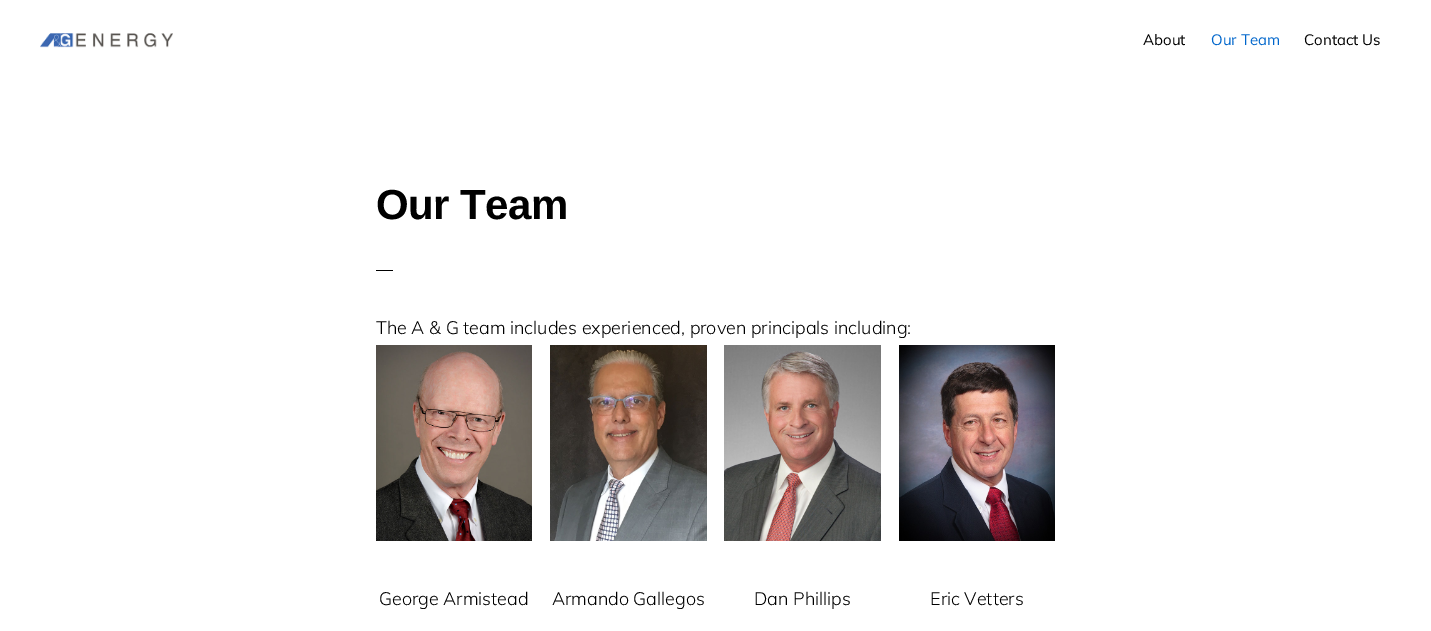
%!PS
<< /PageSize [1431 631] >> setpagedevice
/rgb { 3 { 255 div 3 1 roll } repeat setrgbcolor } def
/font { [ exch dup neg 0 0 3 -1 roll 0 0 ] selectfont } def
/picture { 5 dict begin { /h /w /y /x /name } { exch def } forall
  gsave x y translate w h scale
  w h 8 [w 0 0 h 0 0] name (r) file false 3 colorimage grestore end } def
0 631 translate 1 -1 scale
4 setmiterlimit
255 255 255 rgb
0 0 1431 631 rectfill
(img/1.rgb) 40 33 133 15 picture
0 0 0 rgb
376 270 17 1 rectfill
(img/2.rgb) 376 345 156 196 picture
(img/3.rgb) 550 345 157 196 picture
(img/4.rgb) 724 345 157 196 picture
(img/5.rgb) 899 345 156 196 picture
/Muli-Regular 15 font
1143 45 moveto (About) show
0 102 204 rgb
1211 45 moveto (Our Team) show
0 0 0 rgb
1304 45 moveto (Contact Us) show
/LiberationSans-Bold 42 font
376 219 moveto -0.5 0 (Our Team) ashow
/Muli-Light 18 font
[
  [(The A & G team includes experienced, proven principals including:) 376 334]
  [(George Armistead) 379 605]
  [(Armando Gallegos) 552 605]
  [(Dan Phillips) 754 605]
  [(Eric Vetters) 930 605]
] { aload pop moveto show } forall
showpage
